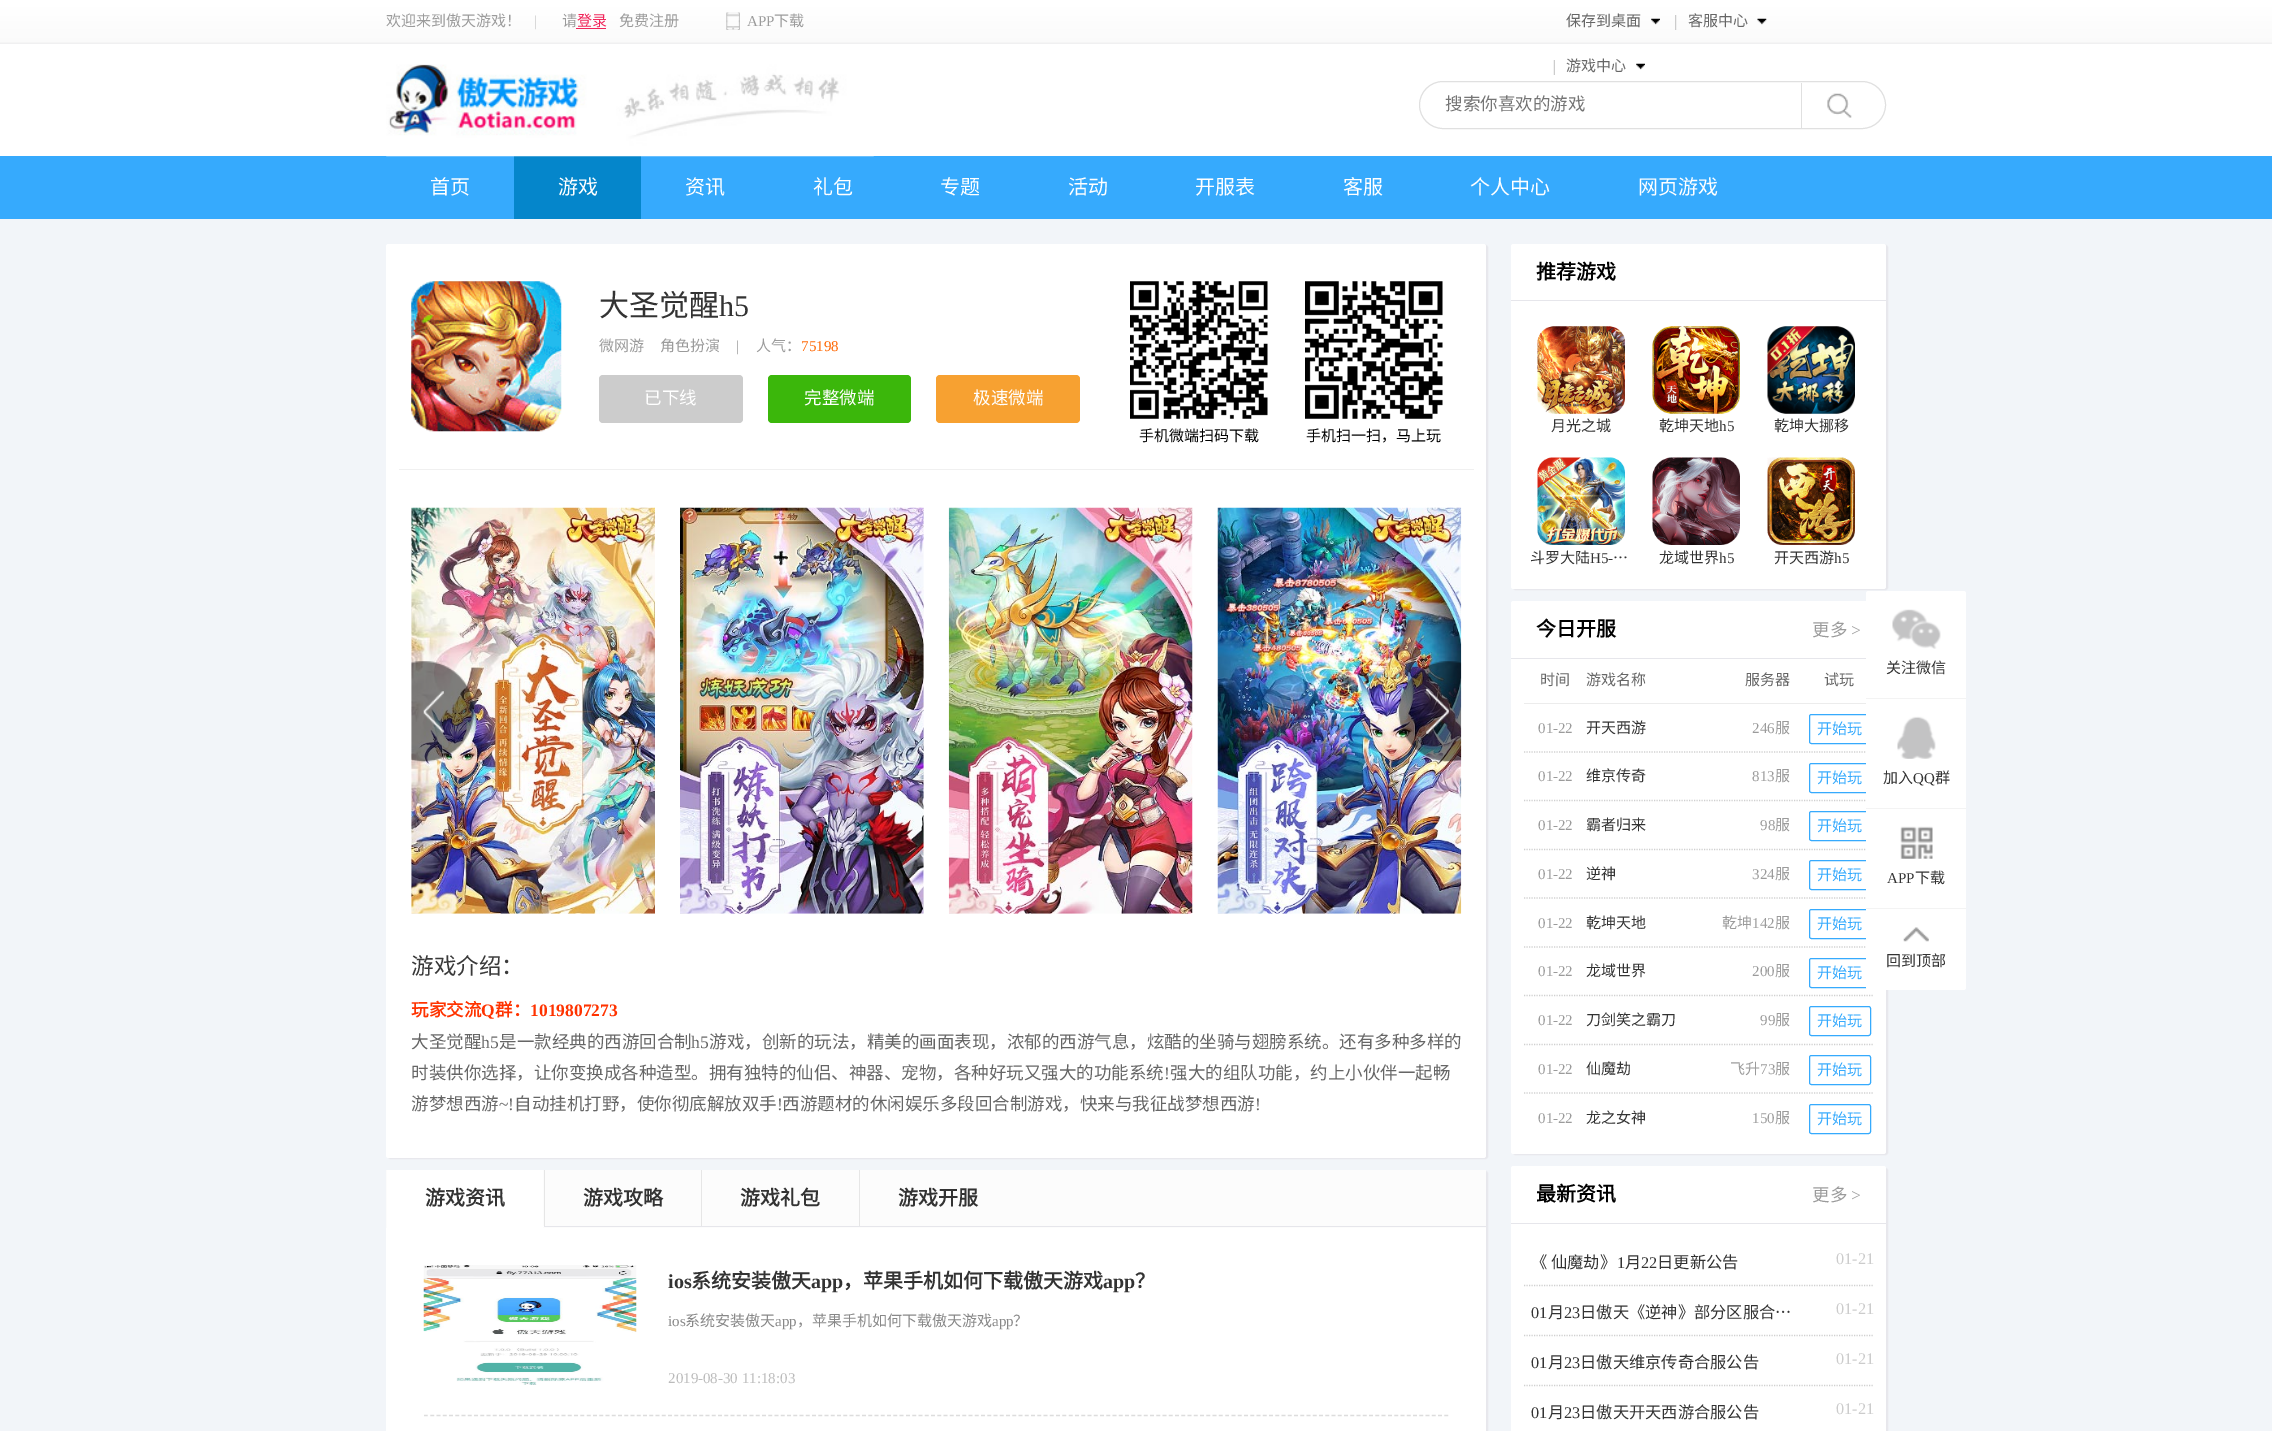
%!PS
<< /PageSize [2272 1431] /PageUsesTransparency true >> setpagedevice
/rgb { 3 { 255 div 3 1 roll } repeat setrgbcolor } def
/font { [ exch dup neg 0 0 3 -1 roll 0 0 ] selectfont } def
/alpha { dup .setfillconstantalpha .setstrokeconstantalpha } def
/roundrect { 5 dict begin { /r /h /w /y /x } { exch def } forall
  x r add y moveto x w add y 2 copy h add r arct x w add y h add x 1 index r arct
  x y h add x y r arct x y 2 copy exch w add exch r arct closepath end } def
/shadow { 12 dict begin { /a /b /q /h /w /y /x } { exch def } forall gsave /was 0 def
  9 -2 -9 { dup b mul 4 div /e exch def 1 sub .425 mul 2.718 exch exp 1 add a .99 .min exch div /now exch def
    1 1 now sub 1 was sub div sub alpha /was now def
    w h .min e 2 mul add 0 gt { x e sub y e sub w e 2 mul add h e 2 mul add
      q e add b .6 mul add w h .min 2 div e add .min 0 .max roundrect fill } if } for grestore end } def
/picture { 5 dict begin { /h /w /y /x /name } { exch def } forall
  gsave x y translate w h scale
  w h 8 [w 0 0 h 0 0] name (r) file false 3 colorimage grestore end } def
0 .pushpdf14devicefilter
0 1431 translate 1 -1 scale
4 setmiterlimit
242 245 249 rgb
0 0 2272 1431 rectfill
(img/1.rgb) 0 0 2272 44 picture
240 38 90 rgb
576 28 30 1 rectfill
(img/2.rgb) 726 12 14 18 picture
(img/3.rgb) 1651 18 9 7 picture
(img/4.rgb) 1675 15 2 15 picture
(img/5.rgb) 1757 18 10 7 picture
255 255 255 rgb
0 44 2272 112 rectfill
(img/6.rgb) 1553 60 2 15 picture
(img/7.rgb) 1636 63 9 7 picture
54 170 253 rgb
0 156 2272 63 rectfill
5 134 203 rgb
514 156 127 63 rectfill
(img/8.rgb) 386 64 488 93 picture
224 224 224 rgb
1419.5 81.5 466 47 23.5 roundrect stroke
(img/9.rgb) 1827 93 25 25 picture
1801 83 1 45 rectfill
230 230 235 rgb
388 245 1100 914 2.5 0.5 1 shadow
255 255 255 rgb
386 244 1100 914 2.5 roundrect fill
240 240 240 rgb
399 469 1075 1 rectfill
(img/10.rgb) 411 281 151 151 picture
204 204 204 rgb
599 375 144 48 4 roundrect fill
59 183 11 rgb
768 375 143 48 4 roundrect fill
247 161 49 rgb
936 375 144 48 4 roundrect fill
(img/11.rgb) 1130 281 138 138 picture
(img/12.rgb) 1305 281 138 138 picture
(img/13.rgb) 411 507 244 407 picture
(img/14.rgb) 680 507 244 407 picture
(img/15.rgb) 948 507 245 407 picture
(img/16.rgb) 1217 507 245 407 picture
(img/17.rgb) 411 661 63 101 picture
(img/18.rgb) 1398 661 64 101 picture
230 230 235 rgb
388 1171 1100 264 2.5 0.5 1 shadow
[
  [386 1228 1100 203 255 255 255]
  [543 1170 943 58 252 252 252]
  [544 1226 942 1 230 230 235]
  [387 1170 156 58 255 255 255]
  [386 1226 158 1 255 255 255]
  [386 1170 1 58 252 252 252]
  [544 1170 1 56 230 230 230]
  [701 1170 1 56 230 230 230]
  [859 1170 1 56 230 230 230]
] { aload pop rgb rectfill } forall
221 221 221 rgb
1.2 setlinewidth
[3.75 2.51] 0 setdash
424 1415.5 moveto 1449 1415.5 lineto stroke
(img/19.rgb) 423 1265 214 120 picture
230 230 235 rgb
1513 245 375 345 2.5 0.5 1 shadow
255 255 255 rgb
1511 244 375 345 2.5 roundrect fill
230 230 235 rgb
1511 300 375 1 rectfill
(img/20.rgb) 1537 326 88 88 picture
(img/21.rgb) 1652 326 88 88 picture
(img/22.rgb) 1767 326 88 88 picture
(img/23.rgb) 1537 457 88 88 picture
(img/24.rgb) 1652 457 88 88 picture
(img/25.rgb) 1767 457 88 88 picture
1513 603 375 552 2.5 0.5 1 shadow
255 255 255 rgb
1511 601 375 553 2.5 roundrect fill
230 230 235 rgb
1511 658 355 1 rectfill
236 236 236 rgb
1524 703 350 1 rectfill
54 170 253 rgb
1 setlinewidth
[] 0 setdash
1809.5 714.5 61 29 2 roundrect stroke
208 208 208 rgb
1.2 setlinewidth
[1.25 1.25] 0 setdash
1524 752 moveto 1874 752 lineto stroke
54 170 253 rgb
1 setlinewidth
[] 0 setdash
1809.5 763.5 61 29 2 roundrect stroke
208 208 208 rgb
1.2 setlinewidth
[1.25 1.25] 0 setdash
1524 800.5 moveto 1874 800.5 lineto stroke
54 170 253 rgb
1 setlinewidth
[] 0 setdash
1809.5 811.5 61 29 2 roundrect stroke
208 208 208 rgb
1.2 setlinewidth
[1.25 1.25] 0 setdash
1524 849.5 moveto 1874 849.5 lineto stroke
54 170 253 rgb
1 setlinewidth
[] 0 setdash
1809.5 860.5 61 29 2 roundrect stroke
208 208 208 rgb
1.2 setlinewidth
[1.25 1.25] 0 setdash
1524 898 moveto 1874 898 lineto stroke
54 170 253 rgb
1 setlinewidth
[] 0 setdash
1809.5 909.5 61 29 2 roundrect stroke
208 208 208 rgb
1.2 setlinewidth
[1.25 1.25] 0 setdash
1524 947 moveto 1874 947 lineto stroke
54 170 253 rgb
1 setlinewidth
[] 0 setdash
1809.5 958.5 61 29 2 roundrect stroke
208 208 208 rgb
1.2 setlinewidth
[1.25 1.25] 0 setdash
1524 995.5 moveto 1874 995.5 lineto stroke
54 170 253 rgb
1 setlinewidth
[] 0 setdash
1809.5 1006.5 61 29 2 roundrect stroke
208 208 208 rgb
1.2 setlinewidth
[1.25 1.25] 0 setdash
1524 1044.5 moveto 1874 1044.5 lineto stroke
54 170 253 rgb
1 setlinewidth
[] 0 setdash
1809.5 1055.5 61 29 2 roundrect stroke
208 208 208 rgb
1.2 setlinewidth
[1.25 1.25] 0 setdash
1524 1093 moveto 1874 1093 lineto stroke
54 170 253 rgb
1 setlinewidth
[] 0 setdash
1809.5 1104.5 61 29 2 roundrect stroke
230 230 235 rgb
1513 1168 375 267 2.5 0.5 1 shadow
255 255 255 rgb
1511 1166 375 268 2.5 roundrect fill
230 230 235 rgb
1511 1223 375 1 rectfill
208 208 208 rgb
1.2 setlinewidth
[1.25 1.25] 0 setdash
1524 1285.5 moveto 1874 1285.5 lineto stroke
1524 1335.5 moveto 1874 1335.5 lineto stroke
1524 1385.5 moveto 1874 1385.5 lineto stroke
255 255 255 rgb
1866 591 100 399 2.5 roundrect fill
243 243 243 rgb
1866 698 100 1 rectfill
(img/26.rgb) 1892 609 49 40 picture
1866 808 100 1 rectfill
(img/27.rgb) 1897 716 39 43 picture
1866 908 100 1 rectfill
(img/28.rgb) 1900 826 33 33 picture
(img/29.rgb) 1903 927 26 15 picture
/NotoSansCJKSC-Regular 15 font
155 155 155 rgb
386 26 moveto (欢迎来到傲天游戏！) show
/LiberationSerif-Regular 15 font
204 204 204 rgb
534 26 moveto (|) show
/NotoSansCJKSC-Regular 15 font
155 155 155 rgb
562 26 moveto (请) show
240 38 90 rgb
577 26 moveto (登录) show
155 155 155 rgb
619 26 moveto (免费注册) show
/LiberationSerif-Regular 15 font
747 26 moveto (APP) show
/NotoSansCJKSC-Regular 15 font
774 26 moveto (下载) show
102 102 102 rgb
[
  [(保存到桌面) 1566 26]
  [(客服中心) 1688 26]
  [(游戏中心) 1566 71]
] { aload pop moveto show } forall
/NotoSansCJKSC-Regular 17.5 font
117 117 117 rgb
1445 110 moveto (搜索你喜欢的游戏) show
/NotoSansCJKSC-Regular 20 font
255 255 255 rgb
[
  [(首页) 430 194]
  [(游戏) 558 194]
  [(资讯) 685 194]
  [(礼包) 813 194]
  [(专题) 940 194]
  [(活动) 1068 194]
  [(开服表) 1195 194]
  [(客服) 1343 194]
  [(个人中心) 1470 194]
  [(网页游戏) 1638 194]
] { aload pop moveto show } forall
/NotoSansCJKSC-Regular 30 font
51 51 51 rgb
599 316 moveto (大圣觉醒) show
/LiberationSerif-Regular 30 font
719 316 moveto (h5) show
/NotoSansCJKSC-Regular 15 font
155 155 155 rgb
599 351 moveto (微网游) show
660 351 moveto (角色扮演) show
/LiberationSerif-Regular 15 font
736 351 moveto (|) show
/NotoSansCJKSC-Regular 15 font
756 351 moveto (人气：) show
/LiberationSerif-Regular 15 font
255 102 0 rgb
801 351 moveto (75198) show
/NotoSansCJKSC-Regular 17.5 font
255 255 255 rgb
[
  [(已下线) 644 404]
  [(完整微端) 804 404]
  [(极速微端) 973 404]
] { aload pop moveto show } forall
/NotoSansCJKSC-Regular 15 font
0 0 0 rgb
1139 441 moveto (手机微端扫码下载) show
1306 441 moveto (手机扫一扫，马上玩) show
/NotoSansCJKSC-Regular 22.5 font
58 58 58 rgb
411 974 moveto (游戏介绍：) show
/NotoSansCJKSC-Bold 17.5 font
255 51 0 rgb
411 1016 moveto (玩家交流) show
/LiberationSerif-Bold 17.5 font
481 1016 moveto (Q) show
/NotoSansCJKSC-Bold 17.5 font
495 1016 moveto (群：) show
/LiberationSerif-Bold 17.5 font
530 1016 moveto (1019807273) show
/NotoSansCJKSC-Regular 17.5 font
102 102 102 rgb
411 1048 moveto (大圣觉醒) show
/LiberationSerif-Regular 17.5 font
481 1048 moveto (h5) show
/NotoSansCJKSC-Regular 17.5 font
499 1048 moveto (是一款经典的西游回合制) show
/LiberationSerif-Regular 17.5 font
691 1048 moveto (h5) show
/NotoSansCJKSC-Regular 17.5 font
709 1048 moveto (游戏，创新的玩法，精美的画面表现，浓郁的西游气息，炫酷的坐骑与翅膀系统。还有多种多样的) show
411 1079 moveto (时装供你选择，让你变换成各种造型。拥有独特的仙侣、神器、宠物，各种好玩又强大的功能系统) show
/LiberationSerif-Regular 17.5 font
1164 1079 moveto (!) show
/NotoSansCJKSC-Regular 17.5 font
1170 1079 moveto (强大的组队功能，约上小伙伴一起畅) show
411 1110 moveto (游梦想西游) show
/LiberationSerif-Regular 17.5 font
499 1110 moveto (~!) show
/NotoSansCJKSC-Regular 17.5 font
514 1110 moveto (自动挂机打野，使你彻底解放双手) show
/LiberationSerif-Regular 17.5 font
777 1110 moveto (!) show
/NotoSansCJKSC-Regular 17.5 font
782 1110 moveto (西游题材的休闲娱乐多段回合制游戏，快来与我征战梦想西游) show
/LiberationSerif-Regular 17.5 font
1255 1110 moveto (!) show
/NotoSansCJKSC-Bold 20 font
51 51 51 rgb
[
  [(游戏资讯) 425 1205]
  [(游戏攻略) 583 1205]
  [(游戏礼包) 740 1205]
  [(游戏开服) 898 1205]
] { aload pop moveto show } forall
/LiberationSerif-Bold 20 font
668 1288 moveto (ios) show
/NotoSansCJKSC-Bold 20 font
691 1288 moveto (系统安装傲天) show
/LiberationSerif-Bold 20 font
811 1288 moveto (app) show
/NotoSansCJKSC-Bold 20 font
843 1288 moveto (，苹果手机如何下载傲天游戏) show
/LiberationSerif-Bold 20 font
1103 1288 moveto (app) show
/NotoSansCJKSC-Bold 20 font
1135 1288 moveto (？) show
/LiberationSerif-Regular 15 font
136 136 136 rgb
668 1326 moveto (ios) show
/NotoSansCJKSC-Regular 15 font
685 1326 moveto (系统安装傲天) show
/LiberationSerif-Regular 15 font
775 1326 moveto (app) show
/NotoSansCJKSC-Regular 15 font
797 1326 moveto (，苹果手机如何下载傲天游戏) show
/LiberationSerif-Regular 15 font
992 1326 moveto (app) show
/NotoSansCJKSC-Regular 15 font
1013 1326 moveto (？) show
/LiberationSerif-Regular 15 font
187 187 187 rgb
668 1383 moveto (2019-08-30 11:18:03) show
/NotoSansCJKSC-Bold 20 font
0 0 0 rgb
1536 279 moveto (推荐游戏) show
/NotoSansCJKSC-Regular 15 font
51 51 51 rgb
1551 431 moveto (月光之城) show
1659 431 moveto (乾坤天地) show
/LiberationSerif-Regular 15 font
1719 431 moveto (h5) show
/NotoSansCJKSC-Regular 15 font
1774 431 moveto (乾坤大挪移) show
1530 563 moveto (斗罗大陆) show
/LiberationSerif-Regular 15 font
1590 563 moveto (H5-) show
/NotoSansCJKSC-Regular 15 font
1613 563 moveto (…) show
1659 563 moveto (龙域世界) show
/LiberationSerif-Regular 15 font
1719 563 moveto (h5) show
/NotoSansCJKSC-Regular 15 font
1774 563 moveto (开天西游) show
/LiberationSerif-Regular 15 font
1834 563 moveto (h5) show
/NotoSansCJKSC-Bold 20 font
0 0 0 rgb
1536 636 moveto (今日开服) show
/NotoSansCJKSC-Regular 17.5 font
155 155 155 rgb
1812 636 moveto (更多) show
/LiberationSerif-Regular 17.5 font
1851 636 moveto (>) show
/NotoSansCJKSC-Regular 15 font
102 102 102 rgb
[
  [(时间) 1540 685]
  [(游戏名称) 1586 685]
  [(服务器) 1745 685]
  [(试玩) 1824 685]
] { aload pop moveto show } forall
/LiberationSerif-Regular 15 font
155 155 155 rgb
1538 733 moveto (01-22) show
/NotoSansCJKSC-Regular 15 font
51 51 51 rgb
1586 733 moveto (开天西游) show
/LiberationSerif-Regular 15 font
155 155 155 rgb
1752 733 moveto (246) show
/NotoSansCJKSC-Regular 15 font
1775 733 moveto (服) show
54 170 253 rgb
1817 734 moveto (开始玩) show
/LiberationSerif-Regular 15 font
155 155 155 rgb
1538 781 moveto (01-22) show
/NotoSansCJKSC-Regular 15 font
51 51 51 rgb
1586 781 moveto (维京传奇) show
/LiberationSerif-Regular 15 font
155 155 155 rgb
1752 781 moveto (813) show
/NotoSansCJKSC-Regular 15 font
1775 781 moveto (服) show
54 170 253 rgb
1817 783 moveto (开始玩) show
/LiberationSerif-Regular 15 font
155 155 155 rgb
1538 830 moveto (01-22) show
/NotoSansCJKSC-Regular 15 font
51 51 51 rgb
1586 830 moveto (霸者归来) show
/LiberationSerif-Regular 15 font
155 155 155 rgb
1760 830 moveto (98) show
/NotoSansCJKSC-Regular 15 font
1775 830 moveto (服) show
54 170 253 rgb
1817 831 moveto (开始玩) show
/LiberationSerif-Regular 15 font
155 155 155 rgb
1538 879 moveto (01-22) show
/NotoSansCJKSC-Regular 15 font
51 51 51 rgb
1586 879 moveto (逆神) show
/LiberationSerif-Regular 15 font
155 155 155 rgb
1752 879 moveto (324) show
/NotoSansCJKSC-Regular 15 font
1775 879 moveto (服) show
54 170 253 rgb
1817 880 moveto (开始玩) show
/LiberationSerif-Regular 15 font
155 155 155 rgb
1538 928 moveto (01-22) show
/NotoSansCJKSC-Regular 15 font
51 51 51 rgb
1586 928 moveto (乾坤天地) show
155 155 155 rgb
1722 928 moveto (乾坤) show
/LiberationSerif-Regular 15 font
1752 928 moveto (142) show
/NotoSansCJKSC-Regular 15 font
1775 928 moveto (服) show
54 170 253 rgb
1817 929 moveto (开始玩) show
/LiberationSerif-Regular 15 font
155 155 155 rgb
1538 976 moveto (01-22) show
/NotoSansCJKSC-Regular 15 font
51 51 51 rgb
1586 976 moveto (龙域世界) show
/LiberationSerif-Regular 15 font
155 155 155 rgb
1752 976 moveto (200) show
/NotoSansCJKSC-Regular 15 font
1775 976 moveto (服) show
54 170 253 rgb
1817 978 moveto (开始玩) show
/LiberationSerif-Regular 15 font
155 155 155 rgb
1538 1025 moveto (01-22) show
/NotoSansCJKSC-Regular 15 font
51 51 51 rgb
1586 1025 moveto (刀剑笑之霸刀) show
/LiberationSerif-Regular 15 font
155 155 155 rgb
1760 1025 moveto (99) show
/NotoSansCJKSC-Regular 15 font
1775 1025 moveto (服) show
54 170 253 rgb
1817 1026 moveto (开始玩) show
/LiberationSerif-Regular 15 font
155 155 155 rgb
1538 1074 moveto (01-22) show
/NotoSansCJKSC-Regular 15 font
51 51 51 rgb
1586 1074 moveto (仙魔劫) show
155 155 155 rgb
1730 1074 moveto (飞升) show
/LiberationSerif-Regular 15 font
1760 1074 moveto (73) show
/NotoSansCJKSC-Regular 15 font
1775 1074 moveto (服) show
54 170 253 rgb
1817 1075 moveto (开始玩) show
/LiberationSerif-Regular 15 font
155 155 155 rgb
1538 1123 moveto (01-22) show
/NotoSansCJKSC-Regular 15 font
51 51 51 rgb
1586 1123 moveto (龙之女神) show
/LiberationSerif-Regular 15 font
155 155 155 rgb
1752 1123 moveto (150) show
/NotoSansCJKSC-Regular 15 font
1775 1123 moveto (服) show
54 170 253 rgb
1817 1124 moveto (开始玩) show
/NotoSansCJKSC-Bold 20 font
0 0 0 rgb
1536 1201 moveto (最新资讯) show
/NotoSansCJKSC-Regular 17.5 font
155 155 155 rgb
1812 1201 moveto (更多) show
/LiberationSerif-Regular 17.5 font
1851 1201 moveto (>) show
/NotoSansCJKSC-Regular 16.25 font
51 51 51 rgb
1531 1268 moveto (《 仙魔劫》) show
/LiberationSerif-Regular 16.25 font
1617 1268 moveto (1) show
/NotoSansCJKSC-Regular 16.25 font
1625 1268 moveto (月) show
/LiberationSerif-Regular 16.25 font
1641 1268 moveto (22) show
/NotoSansCJKSC-Regular 16.25 font
1657 1268 moveto (日更新公告) show
/LiberationSerif-Regular 16.25 font
204 204 204 rgb
1836 1264 moveto (01-21) show
51 51 51 rgb
1531 1318 moveto (01) show
/NotoSansCJKSC-Regular 16.25 font
1548 1318 moveto (月) show
/LiberationSerif-Regular 16.25 font
1564 1318 moveto (23) show
/NotoSansCJKSC-Regular 16.25 font
1580 1318 moveto (日傲天《逆神》部分区服合…) show
/LiberationSerif-Regular 16.25 font
204 204 204 rgb
1836 1314 moveto (01-21) show
51 51 51 rgb
1531 1368 moveto (01) show
/NotoSansCJKSC-Regular 16.25 font
1548 1368 moveto (月) show
/LiberationSerif-Regular 16.25 font
1564 1368 moveto (23) show
/NotoSansCJKSC-Regular 16.25 font
1580 1368 moveto (日傲天维京传奇合服公告) show
/LiberationSerif-Regular 16.25 font
204 204 204 rgb
1836 1364 moveto (01-21) show
51 51 51 rgb
1531 1418 moveto (01) show
/NotoSansCJKSC-Regular 16.25 font
1548 1418 moveto (月) show
/LiberationSerif-Regular 16.25 font
1564 1418 moveto (23) show
/NotoSansCJKSC-Regular 16.25 font
1580 1418 moveto (日傲天开天西游合服公告) show
/LiberationSerif-Regular 16.25 font
204 204 204 rgb
1836 1414 moveto (01-21) show
/NotoSansCJKSC-Regular 15 font
51 51 51 rgb
1886 673 moveto (关注微信) show
1883 783 moveto (加入) show
/LiberationSerif-Regular 15 font
1913 783 moveto (QQ) show
/NotoSansCJKSC-Regular 15 font
1935 783 moveto (群) show
/LiberationSerif-Regular 15 font
1887 883 moveto (APP) show
/NotoSansCJKSC-Regular 15 font
1915 883 moveto (下载) show
1886 966 moveto (回到顶部) show
.poppdf14devicefilter showpage
